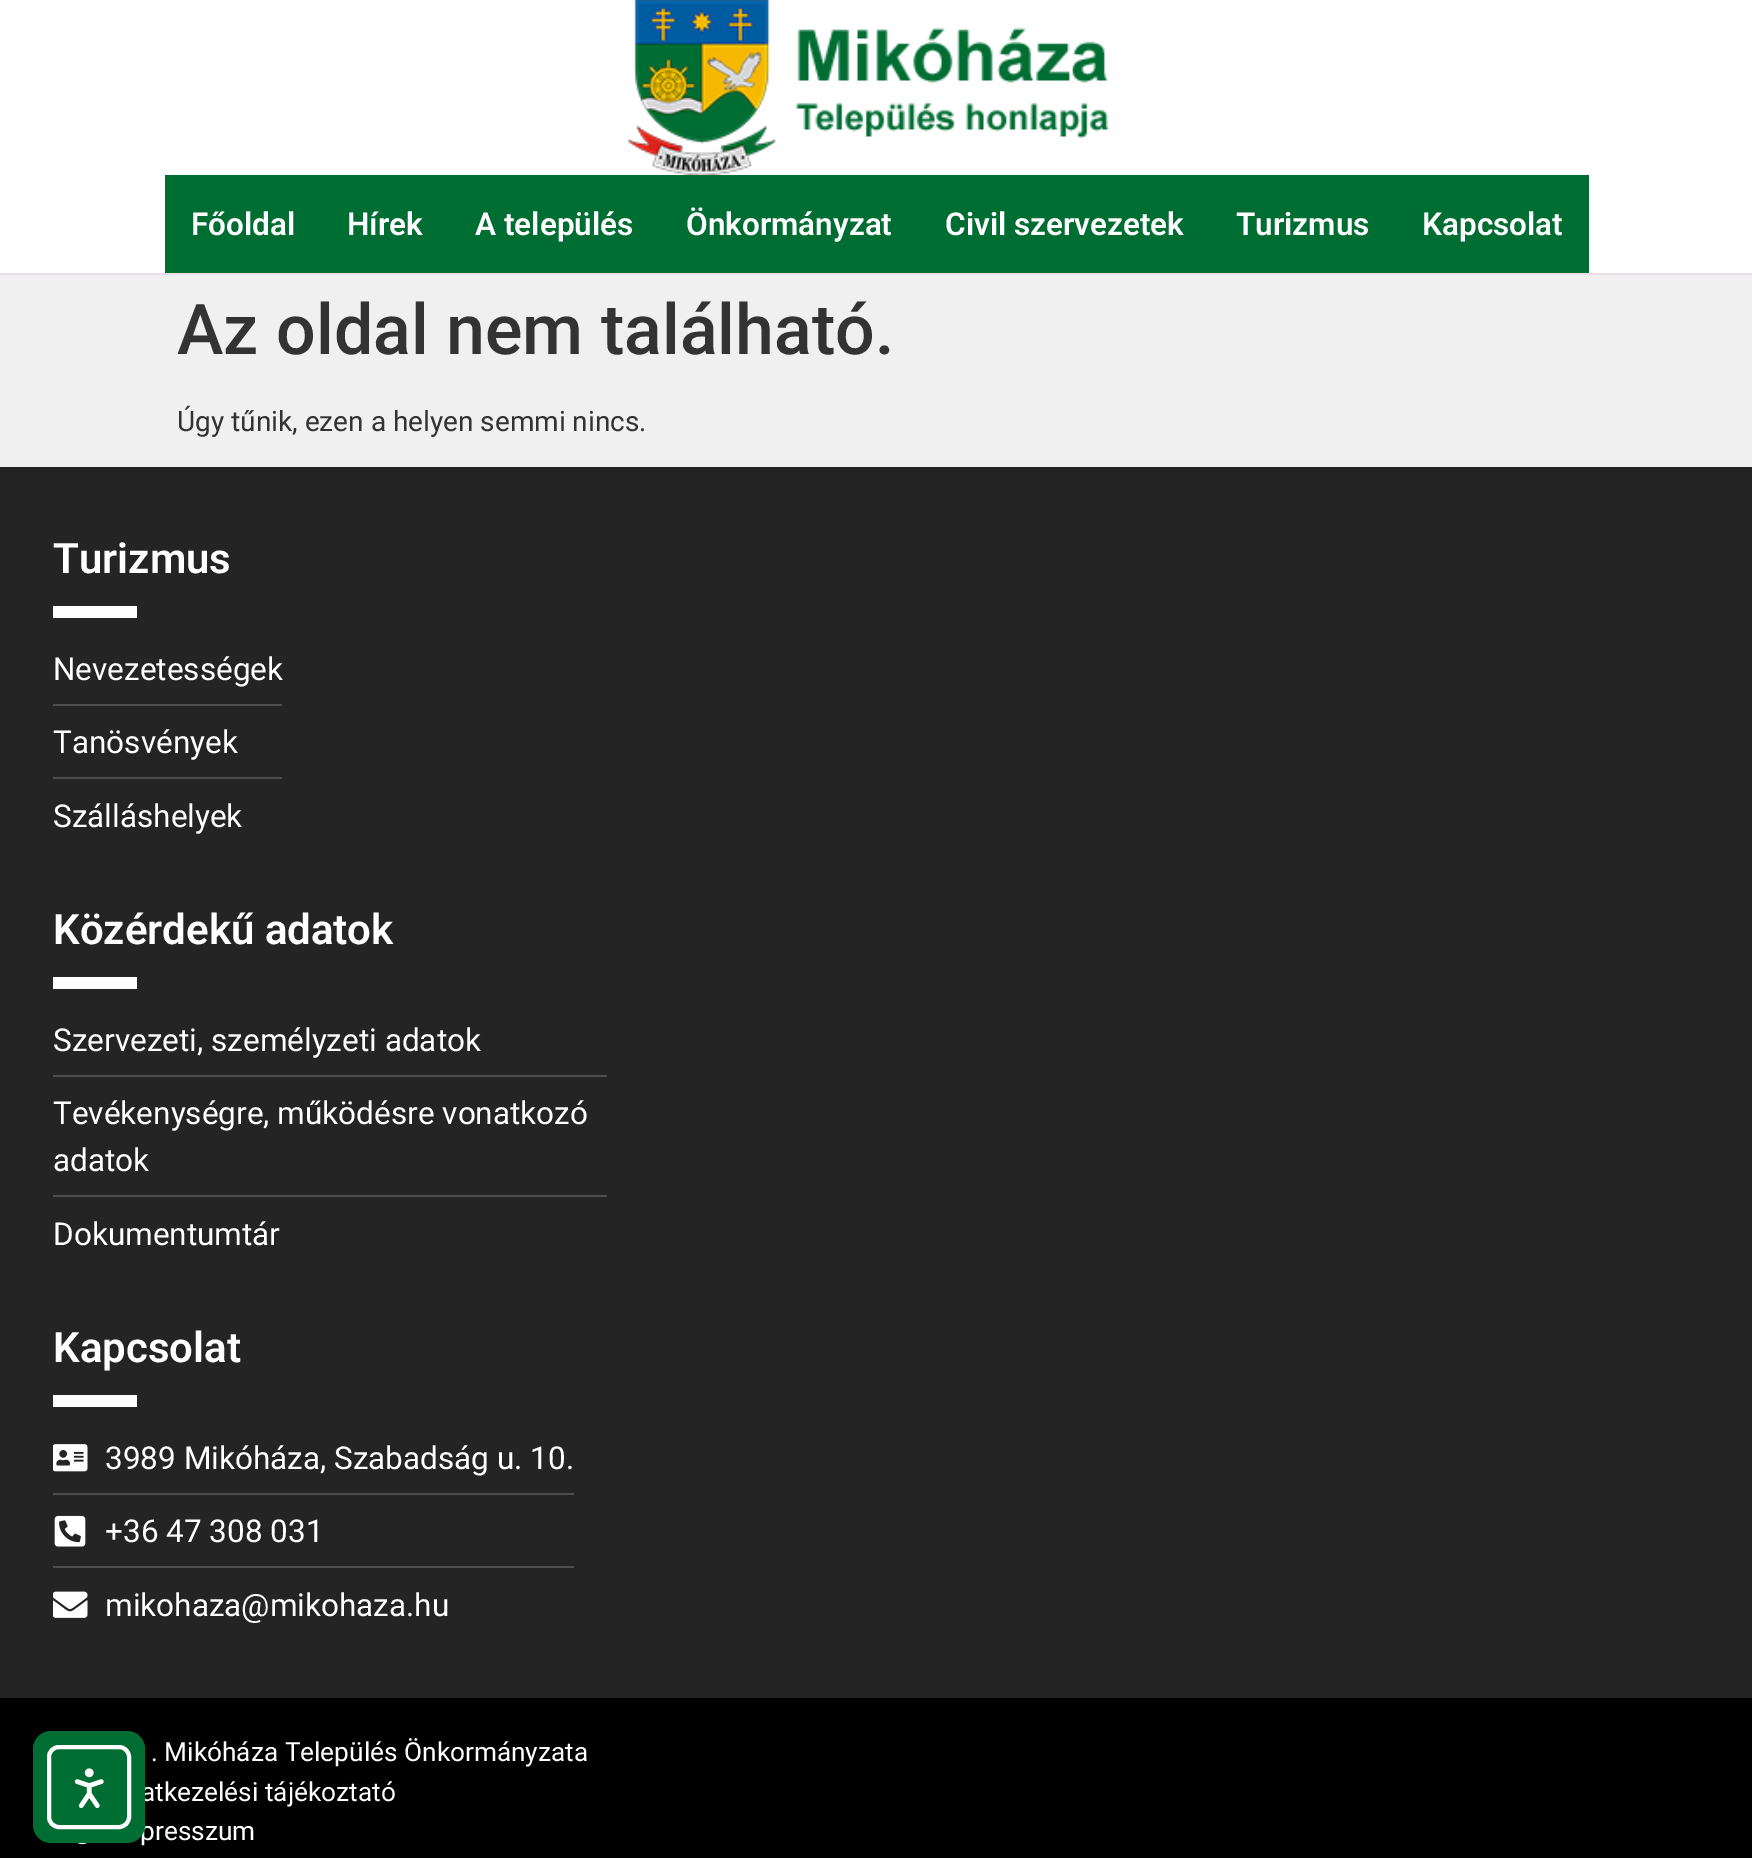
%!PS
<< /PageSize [1752 1858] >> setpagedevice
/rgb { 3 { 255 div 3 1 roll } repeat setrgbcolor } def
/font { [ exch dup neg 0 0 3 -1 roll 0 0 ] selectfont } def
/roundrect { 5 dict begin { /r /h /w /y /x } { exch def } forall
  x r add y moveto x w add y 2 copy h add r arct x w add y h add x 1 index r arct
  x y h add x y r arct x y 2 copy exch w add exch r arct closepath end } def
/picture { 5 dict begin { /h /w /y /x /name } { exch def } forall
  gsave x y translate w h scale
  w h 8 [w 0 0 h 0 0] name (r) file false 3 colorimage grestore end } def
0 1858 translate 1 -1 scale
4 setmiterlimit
240 240 241 rgb
0 0 1752 1858 rectfill
255 255 255 rgb
0 0 1752 273 rectfill
233 222 233 rgb
0 273 1752 2 rectfill
(img/1.rgb) 628 0 481 175 picture
[
  [165 175 1424 98 0 109 51]
  [0 467 1752 1231 36 36 36]
  [53 606 84 12 255 255 255]
  [53 704 229 2 77 77 78]
  [53 777 229 2 77 77 78]
  [53 977 84 12 255 255 255]
  [53 1075 554 2 77 77 78]
  [53 1195 554 2 77 77 78]
  [53 1395 84 12 255 255 255]
] { aload pop rgb rectfill } forall
(img/2.rgb) 53 1444 35 28 picture
77 77 78 rgb
53 1493 521 2 rectfill
(img/3.rgb) 54 1515 32 32 picture
53 1566 521 2 rectfill
(img/4.rgb) 53 1591 35 27 picture
0 0 0 rgb
0 1698 1752 160 rectfill
(img/5.rgb) 77 1843 10 2 picture
/Roboto-SemiBold 31.5 font
255 255 255 rgb
[
  [(Főoldal) 191 235]
  [(Hírek) 347 235]
  [(A település) 475 235]
  [(Önkormányzat) 686 235]
  [(Civil szervezetek) 945 235]
  [(Turizmus) 1236 235]
  [(Kapcsolat) 1422 235]
] { aload pop moveto show } forall
/Roboto-Medium 70 font
51 51 51 rgb
177 354 moveto (Az oldal nem található.) show
/Roboto-Regular 28 font
177 431 moveto (Úgy tűnik, ezen a helyen semmi nincs.) show
/Roboto-SemiBold 42 font
255 255 255 rgb
53 573 moveto (Turizmus) show
/Roboto-Regular 31.5 font
[
  [(Nevezetességek) 53 680]
  [(Tanösvények) 53 753]
  [(Szálláshelyek) 53 827]
] { aload pop moveto show } forall
/Roboto-SemiBold 42 font
53 944 moveto (Közérdekű adatok) show
/Roboto-Regular 31.5 font
[
  [(Szervezeti, személyzeti adatok) 53 1051]
  [(Tevékenységre, működésre vonatkozó) 53 1124]
  [(adatok) 53 1171]
  [(Dokumentumtár) 53 1245]
] { aload pop moveto show } forall
/Roboto-SemiBold 42 font
53 1362 moveto (Kapcsolat) show
/Roboto-Regular 31.5 font
[
  [(3989 Mikóháza, Szabadság u. 10.) 105 1469]
  [(+36 47 308 031) 105 1542]
  [(mikohaza@mikohaza.hu) 105 1616]
] { aload pop moveto show } forall
/Roboto-Regular 26.25 font
[
  [(. Mikóháza Település Önkormányzata) 151 1761]
  [(atkezelési tájékoztató) 141 1801]
  [(presszum) 140 1840]
] { aload pop moveto show } forall
0 109 51 rgb
33 1731 112 112 18 roundrect fill
255 255 255 rgb
4 setlinewidth
49 1747 80 80 10 roundrect stroke
(img/6.rgb) 74 1768 30 40 picture
showpage
